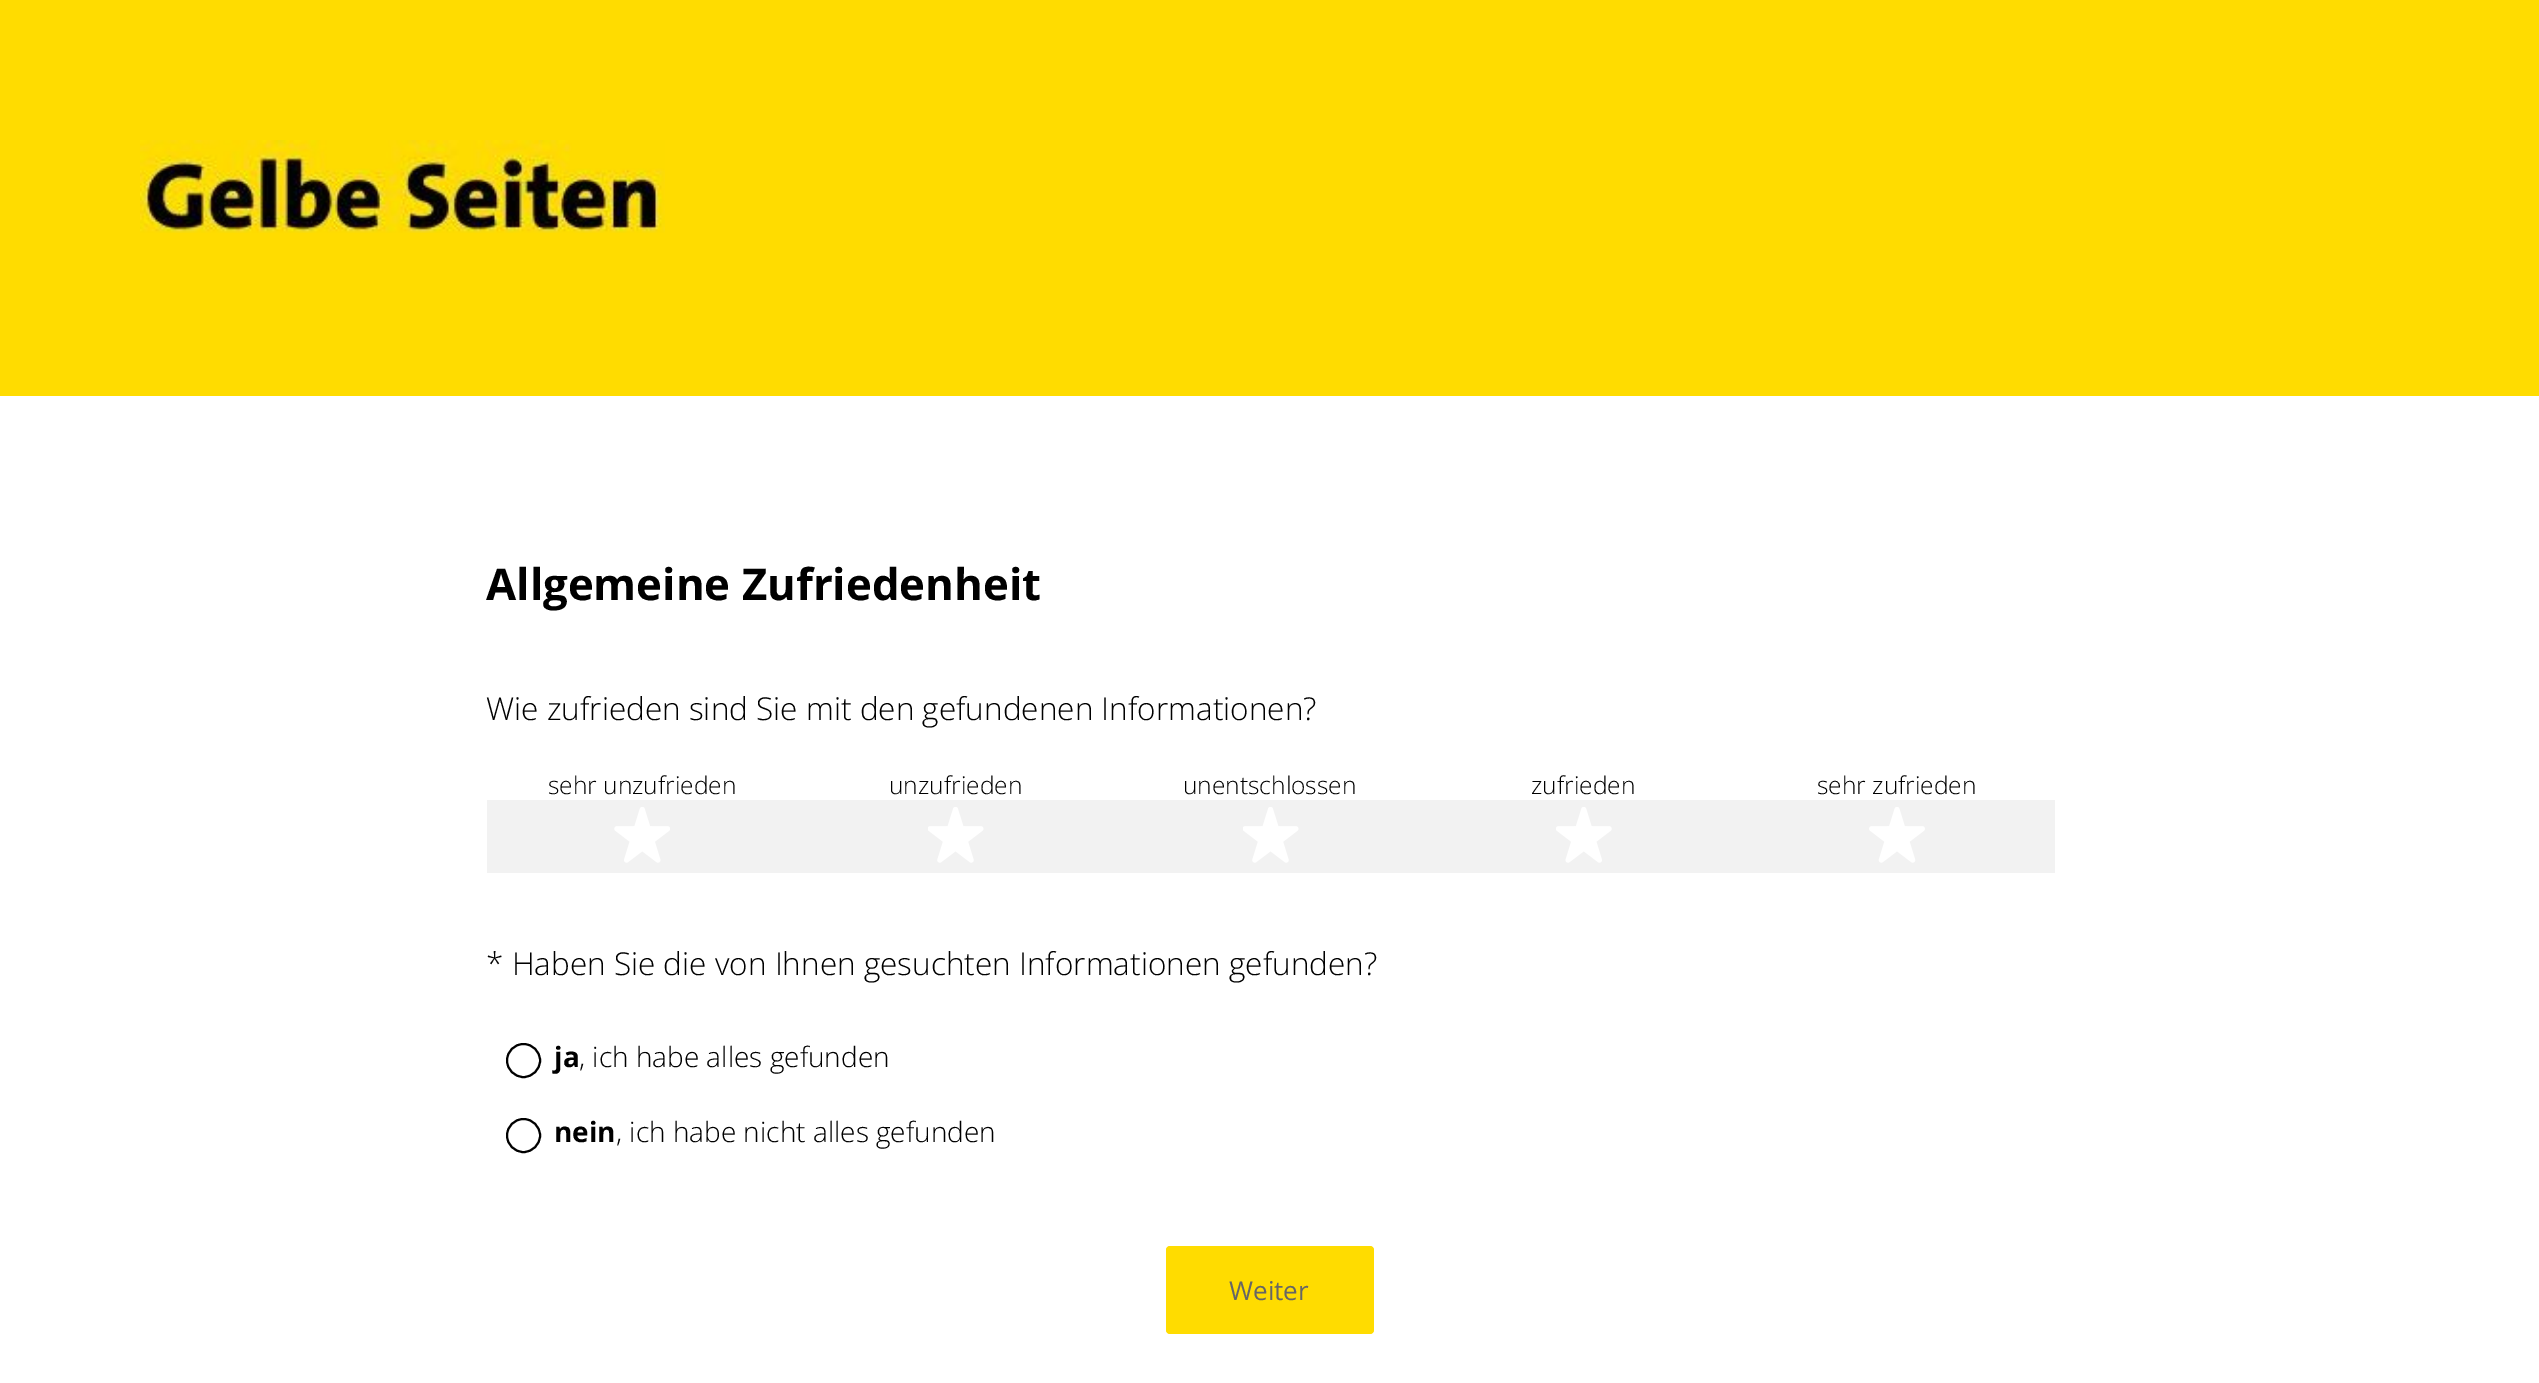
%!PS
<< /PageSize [2539 1383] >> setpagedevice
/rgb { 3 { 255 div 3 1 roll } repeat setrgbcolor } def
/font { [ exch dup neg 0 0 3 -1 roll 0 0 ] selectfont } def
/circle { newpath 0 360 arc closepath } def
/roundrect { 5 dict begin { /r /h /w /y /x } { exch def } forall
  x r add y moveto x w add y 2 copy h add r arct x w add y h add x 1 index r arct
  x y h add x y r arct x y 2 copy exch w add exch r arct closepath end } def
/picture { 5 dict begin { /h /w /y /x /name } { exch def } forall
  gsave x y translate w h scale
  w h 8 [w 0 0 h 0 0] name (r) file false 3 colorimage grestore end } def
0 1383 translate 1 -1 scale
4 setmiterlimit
255 255 255 rgb
0 0 2539 1383 rectfill
255 220 0 rgb
0 0 2539 396 rectfill
(img/1.rgb) 140 140 525 93 picture
242 242 242 rgb
487 800 1568 73 rectfill
(img/2.rgb) 614 807 56 56 picture
(img/3.rgb) 928 807 56 56 picture
(img/3.rgb) 1243 807 56 56 picture
(img/4.rgb) 1556 807 56 56 picture
(img/5.rgb) 1869 807 56 56 picture
0 0 0 rgb
2 setlinewidth
523.5 1060.5 16.5 circle stroke
523.5 1135.5 16.5 circle stroke
255 220 0 rgb
1166 1246 208 88 4 roundrect fill
/OpenSans-Bold 43.75 font
0 0 0 rgb
486 600 moveto (Allgemeine Zufriedenheit) show
/OpenSans-Light 31.5 font
486 720 moveto (Wie zufrieden sind Sie mit den gefundenen Informationen?) show
/OpenSans-Light 24.5 font
[
  [(sehr unzufrieden) 548 794]
  [(unzufrieden) 889 794]
  [(unentschlossen) 1183 794]
  [(zufrieden) 1531 794]
  [(sehr zufrieden) 1817 794]
] { aload pop moveto show } forall
/OpenSans-Light 31.5 font
486 975 moveto (* Haben Sie die von Ihnen gesuchten Informationen gefunden?) show
/OpenSans-Bold 28 font
554 1067 moveto (ja) show
/OpenSans-Light 28 font
579 1067 moveto (, ich habe alles gefunden) show
/OpenSans-Bold 28 font
554 1142 moveto (nein) show
/OpenSans-Light 28 font
616 1142 moveto (, ich habe nicht alles gefunden) show
/OpenSans-Regular 26 font
102 102 102 rgb
1229 1300 moveto (Weiter) show
showpage
